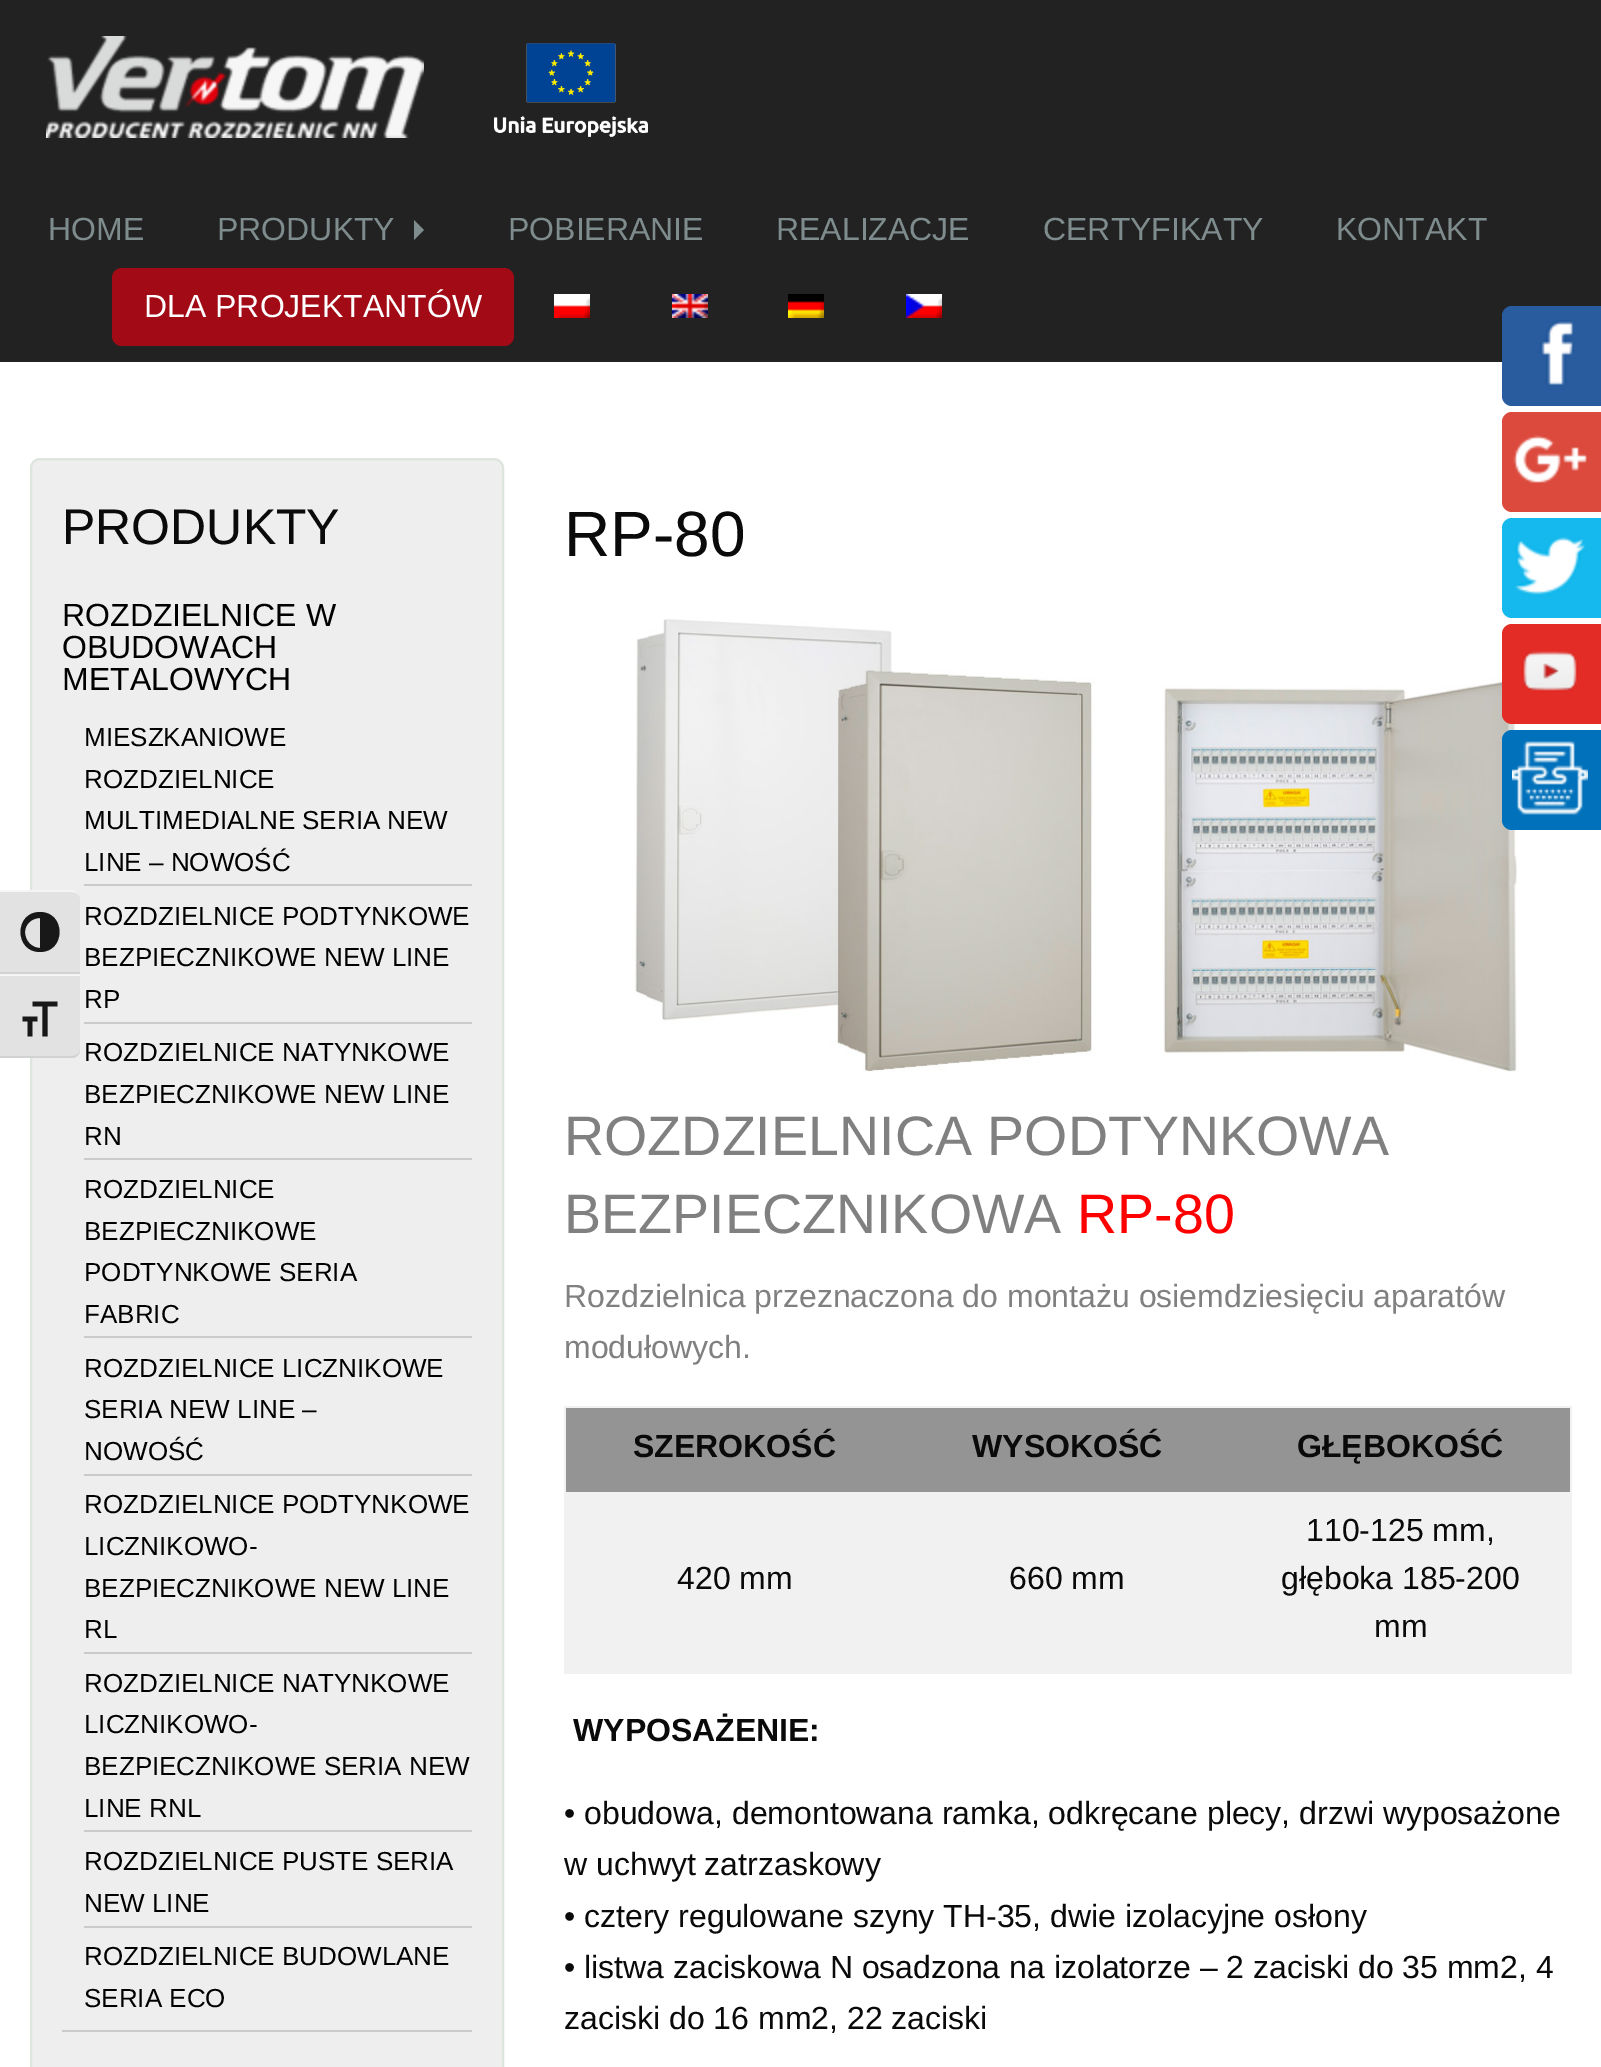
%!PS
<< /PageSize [1601 2067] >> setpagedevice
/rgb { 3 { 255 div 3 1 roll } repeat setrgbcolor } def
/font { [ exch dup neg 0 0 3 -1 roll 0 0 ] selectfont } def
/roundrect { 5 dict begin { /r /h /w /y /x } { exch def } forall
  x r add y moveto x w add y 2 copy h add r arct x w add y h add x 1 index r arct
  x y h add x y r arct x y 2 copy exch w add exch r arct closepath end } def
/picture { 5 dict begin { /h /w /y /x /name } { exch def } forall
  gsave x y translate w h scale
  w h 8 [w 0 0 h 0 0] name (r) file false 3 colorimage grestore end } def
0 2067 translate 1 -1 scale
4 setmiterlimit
255 255 255 rgb
0 0 1601 2067 rectfill
238 238 238 rgb
31 459 472 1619 9 roundrect gsave fill grestore
221 229 222 rgb
2 setlinewidth
stroke
226 226 226 rgb
0 890 moveto 72 890 lineto 76.5 890 80 893.5 80 898 curveto 80 974 lineto 0 974 lineto closepath fill
245 245 245 rgb
0 890 moveto 0 892 lineto 72 892 lineto 76 892 80 895 80 898 curveto 80 894 76 890 72 890 curveto closepath fill
210 210 210 rgb
0 972 80 2 rectfill
24 24 24 rgb
40 912 moveto 14 912 14 952 40 952 curveto 66 952 66 912 40 912 curveto closepath 25 932 moveto 25 924 32 918 40 918 curveto 40 948 lineto 32 948 25 941 25 932 curveto closepath fill
226 226 226 rgb
0 974 moveto 80 974 lineto 80 1050 lineto 80 1054.5 76.5 1058 72 1058 curveto 0 1058 lineto closepath fill
245 245 245 rgb
0 974 80 2 rectfill
210 210 210 rgb
0 1056 moveto 0 1058 lineto 72 1058 lineto 76 1058 80 1054 80 1050 curveto 80 1053 76 1056 72 1056 curveto closepath fill
(img/1.rgb) 22 1001 36 36 picture
34 34 34 rgb
0 0 1601 362 rectfill
(img/2.rgb) 46 36 378 102 picture
(img/3.rgb) 494 43 154 94 picture
127 140 141 rgb
414 240 moveto 414 220 lineto 424 230 lineto closepath fill
162 11 21 rgb
112 268 402 78 10 roundrect fill
(img/4.rgb) 554 294 36 24 picture
(img/5.rgb) 672 294 36 24 picture
(img/6.rgb) 788 294 36 24 picture
(img/7.rgb) 906 294 36 24 picture
41 92 158 rgb
1502 306 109 100 10 roundrect fill
(img/8.rgb) 1540 320 34 65 picture
220 74 61 rgb
1502 412 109 100 10 roundrect fill
(img/9.rgb) 1513 435 74 48 picture
22 185 237 rgb
1502 518 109 100 10 roundrect fill
(img/10.rgb) 1515 537 70 59 picture
(img/13.rgb) 635 619 883 453 picture
227 44 38 rgb
1502 624 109 100 10 roundrect fill
(img/11.rgb) 1522 651 56 41 picture
1 113 187 rgb
1502 730 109 100 10 roundrect fill
(img/12.rgb) 1512 741 76 74 picture
[
  [62 2030 410 2 202 202 202]
  [84 884 388 2 202 202 202]
  [84 1022 388 2 202 202 202]
  [84 1158 388 2 202 202 202]
  [84 1336 388 2 202 202 202]
  [84 1474 388 2 202 202 202]
  [84 1652 388 2 202 202 202]
  [84 1830 388 2 202 202 202]
  [84 1926 388 2 202 202 202]
  [564 1406 1008 2 241 241 241]
  [1570 1406 2 268 241 241 241]
  [564 1672 1008 2 241 241 241]
  [564 1406 2 268 241 241 241]
  [566 1408 1004 84 148 148 148]
  [566 1492 1004 180 241 241 241]
] { aload pop rgb rectfill } forall
/LiberationSans-Regular 32 font
127 140 141 rgb
[
  [(HOME) 48 240]
  [(PRODUKTY) 217 240]
  [(POBIERANIE) 508 240]
  [(REALIZACJE) 776 240]
  [(CERTYFIKATY) 1043 240]
  [(KONTAKT) 1336 240]
] { aload pop moveto show } forall
255 255 255 rgb
144 317 moveto (DLA PROJEKTANTÓW) show
/LiberationSans-Regular 50 font
10 10 10 rgb
62 544 moveto (PRODUKTY) show
/LiberationSans-Regular 32 font
0 0 0 rgb
[
  [(ROZDZIELNICE W) 62 626]
  [(OBUDOWACH) 62 658]
  [(METALOWYCH) 62 690]
] { aload pop moveto show } forall
/LiberationSans-Regular 26 font
[
  [(MIESZKANIOWE) 84 746]
  [(ROZDZIELNICE) 84 788]
  [(MULTIMEDIALNE SERIA NEW) 84 829]
  [(LINE – NOWOŚĆ) 84 871]
  [(ROZDZIELNICE PODTYNKOWE) 84 925]
  [(BEZPIECZNIKOWE NEW LINE) 84 966]
  [(RP) 84 1008]
  [(ROZDZIELNICE NATYNKOWE) 84 1061]
  [(BEZPIECZNIKOWE NEW LINE) 84 1103]
  [(RN) 84 1145]
  [(ROZDZIELNICE) 84 1198]
  [(BEZPIECZNIKOWE) 84 1240]
  [(PODTYNKOWE SERIA) 84 1281]
  [(FABRIC) 84 1323]
  [(ROZDZIELNICE LICZNIKOWE) 84 1377]
  [(SERIA NEW LINE –) 84 1418]
  [(NOWOŚĆ) 84 1460]
  [(ROZDZIELNICE PODTYNKOWE) 84 1513]
  [(LICZNIKOWO-) 84 1555]
  [(BEZPIECZNIKOWE NEW LINE) 84 1597]
  [(RL) 84 1638]
  [(ROZDZIELNICE NATYNKOWE) 84 1692]
  [(LICZNIKOWO-) 84 1733]
  [(BEZPIECZNIKOWE SERIA NEW) 84 1775]
  [(LINE RNL) 84 1817]
  [(ROZDZIELNICE PUSTE SERIA) 84 1870]
  [(NEW LINE) 84 1912]
  [(ROZDZIELNICE BUDOWLANE) 84 1965]
  [(SERIA ECO) 84 2007]
] { aload pop moveto show } forall
/LiberationSans-Regular 64 font
10 10 10 rgb
564 556 moveto (RP-80) show
/LiberationSans-Regular 55.6 font
128 128 128 rgb
564 1155 moveto (ROZDZIELNICA PODTYNKOWA) show
564 1233 moveto (BEZPIECZNIKOWA) show
255 0 0 rgb
1077 1233 moveto (RP-80) show
/LiberationSans-Regular 32 font
128 128 128 rgb
564 1307 moveto (Rozdzielnica przeznaczona do montażu osiemdziesięciu aparatów) show
564 1358 moveto (modułowych.) show
/LiberationSans-Bold 32 font
10 10 10 rgb
[
  [(SZEROKOŚĆ) 633 1457]
  [(WYSOKOŚĆ) 972 1457]
  [(GŁĘBOKOŚĆ) 1297 1457]
] { aload pop moveto show } forall
/LiberationSans-Regular 32 font
[
  [(420 mm) 677 1589]
  [(660 mm) 1009 1589]
  [(110-125 mm,) 1306 1541]
  [(głęboka 185-200) 1281 1589]
  [(mm) 1374 1637]
] { aload pop moveto show } forall
/LiberationSans-Bold 32 font
573 1741 moveto (WYPOSAŻENIE:) show
/LiberationSans-Regular 32 font
[
  [(• obudowa, demontowana ramka, odkręcane plecy, drzwi wyposażone) 564 1824]
  [(w uchwyt zatrzaskowy) 564 1875]
  [(• cztery regulowane szyny TH-35, dwie izolacyjne osłony) 564 1927]
  [(• listwa zaciskowa N osadzona na izolatorze – 2 zaciski do 35 mm2, 4) 564 1978]
  [(zaciski do 16 mm2, 22 zaciski) 564 2029]
] { aload pop moveto show } forall
showpage
